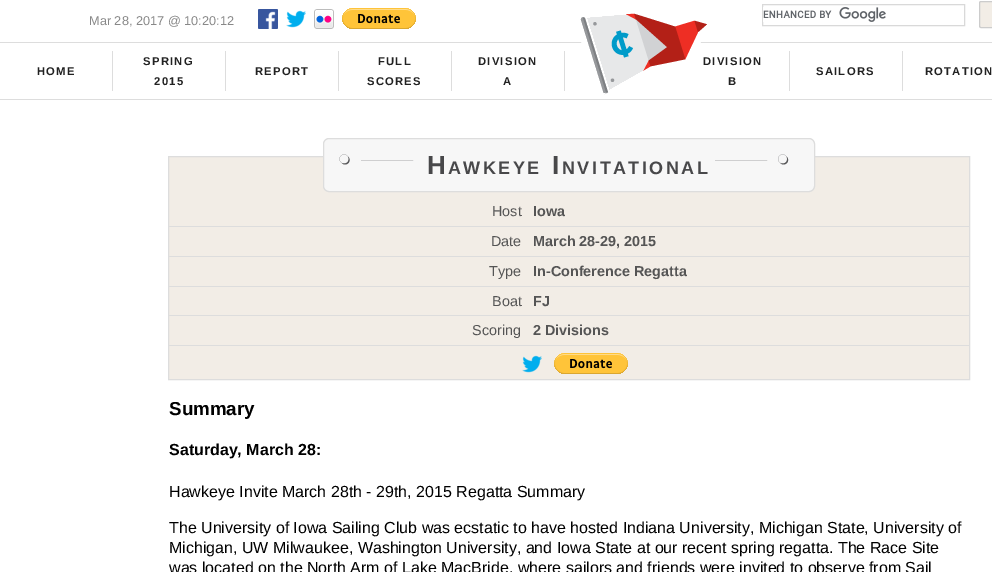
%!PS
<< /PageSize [992 572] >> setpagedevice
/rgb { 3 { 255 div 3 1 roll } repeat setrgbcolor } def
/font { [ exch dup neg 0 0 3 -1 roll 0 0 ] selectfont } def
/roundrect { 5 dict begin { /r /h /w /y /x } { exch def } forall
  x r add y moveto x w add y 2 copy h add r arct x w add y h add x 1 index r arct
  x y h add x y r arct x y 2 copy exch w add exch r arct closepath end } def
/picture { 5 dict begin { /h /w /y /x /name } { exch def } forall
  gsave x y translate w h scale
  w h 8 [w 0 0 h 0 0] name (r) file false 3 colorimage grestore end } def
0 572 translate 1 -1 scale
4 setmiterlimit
255 255 255 rgb
0 0 992 572 rectfill
(img/1.rgb) 258 9 20 20 picture
(img/2.rgb) 286 10 20 18 picture
(img/3.rgb) 314 9 20 20 picture
(img/4.rgb) 342 8 74 21 picture
217 217 217 rgb
762.5 4.5 202 21 rectstroke
(img/5.rgb) 763 7 123 15 picture
242 237 230 rgb
979.5 1.5 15 26 1.5 roundrect gsave fill grestore
204 204 204 rgb
stroke
[
  [0 42 992 1 221 221 221]
  [0 99 992 1 221 221 221]
  [112 51 1 40 221 221 221]
  [225 51 1 40 221 221 221]
  [338 51 1 40 221 221 221]
  [451 51 1 40 221 221 221]
  [564 51 1 40 221 221 221]
  [789 51 1 40 221 221 221]
  [902 51 1 40 221 221 221]
] { aload pop rgb rectfill } forall
242 237 230 rgb
168.5 156.5 moveto 969.5 156.5 lineto 969.5 379.5 lineto 168.5 379.5 lineto closepath gsave fill grestore
221 221 221 rgb
stroke
247 247 247 rgb
323.5 138.5 491 53 5.5 roundrect gsave fill grestore
221 221 221 rgb
stroke
(img/7.rgb) 339 154 75 11 picture
(img/8.rgb) 715 154 74 11 picture
[
  [169 226 801 1 221 221 221]
  [169 256 801 1 221 221 221]
  [169 286 801 1 221 221 221]
  [169 315 801 1 221 221 221]
  [169 345 801 1 221 221 221]
] { aload pop rgb rectfill } forall
(img/9.rgb) 522 355 20 18 picture
(img/10.rgb) 554 353 74 21 picture
/LiberationSans-Regular 12.75 font
136 136 136 rgb
89 25 moveto (Mar 28, 2017 @ 10:20:12) show
/LiberationSans-Bold 11.25 font
34 34 34 rgb
37 75 moveto 1.25 0 (HOME) ashow
143 65 moveto 1.25 0 (SPRING) ashow
154 85 moveto 1.25 0 (2015) ashow
255 75 moveto 1.25 0 (REPORT) ashow
378 65 moveto 1.25 0 (FULL) ashow
367 85 moveto 1.25 0 (SCORES) ashow
478 65 moveto 1.25 0 (DIVISION) ashow
503 85 moveto 1.25 0 (A) ashow
703 65 moveto 1.25 0 (DIVISION) ashow
(img/6.rgb) 580 13 127 82 picture
728 85 moveto 1.25 0 (B) ashow
816 75 moveto 1.25 0 (SAILORS) ashow
925 75 moveto 1.25 0 (ROTATION) ashow
/LiberationSans-Bold 26 font
72 72 74 rgb
427 174 moveto 2.5 0 (H) ashow
/LiberationSans-Bold 18 font
448 174 moveto 2.5 0 (AWKEYE) ashow
/LiberationSans-Bold 26 font
552 174 moveto 2.5 0 (I) ashow
/LiberationSans-Bold 18 font
562 174 moveto 2.5 0 (NVITATIONAL) ashow
/LiberationSans-Regular 14.4 font
85 85 85 rgb
492 216 moveto (Host) show
/LiberationSans-Bold 14.4 font
533 216 moveto (Iowa) show
/LiberationSans-Regular 14.4 font
491 246 moveto (Date) show
/LiberationSans-Bold 14.4 font
533 246 moveto (March 28-29, 2015) show
/LiberationSans-Regular 14.4 font
489 276 moveto (Type) show
/LiberationSans-Bold 14.4 font
533 276 moveto (In-Conference Regatta) show
/LiberationSans-Regular 14.4 font
492 306 moveto (Boat) show
/LiberationSans-Bold 14.4 font
533 306 moveto (FJ) show
/LiberationSans-Regular 14.4 font
472 335 moveto (Scoring) show
/LiberationSans-Bold 14.4 font
533 335 moveto (2 Divisions) show
/LiberationSans-Bold 18.75 font
0 0 0 rgb
169 415 moveto (Summary) show
/LiberationSans-Bold 16 font
169 455 moveto (Saturday, March 28:) show
/LiberationSans-Regular 16 font
[
  [(Hawkeye Invite March 28th - 29th, 2015 Regatta Summary) 169 497]
  [(The University of Iowa Sailing Club was ecstatic to have hosted Indiana University, Michigan State, University of) 169 533]
  [(Michigan, UW Milwaukee, Washington University, and Iowa State at our recent spring regatta. The Race Site) 169 553]
  [(was located on the North Arm of Lake MacBride, where sailors and friends were invited to observe from Sail) 169 573]
] { aload pop moveto show } forall
showpage
